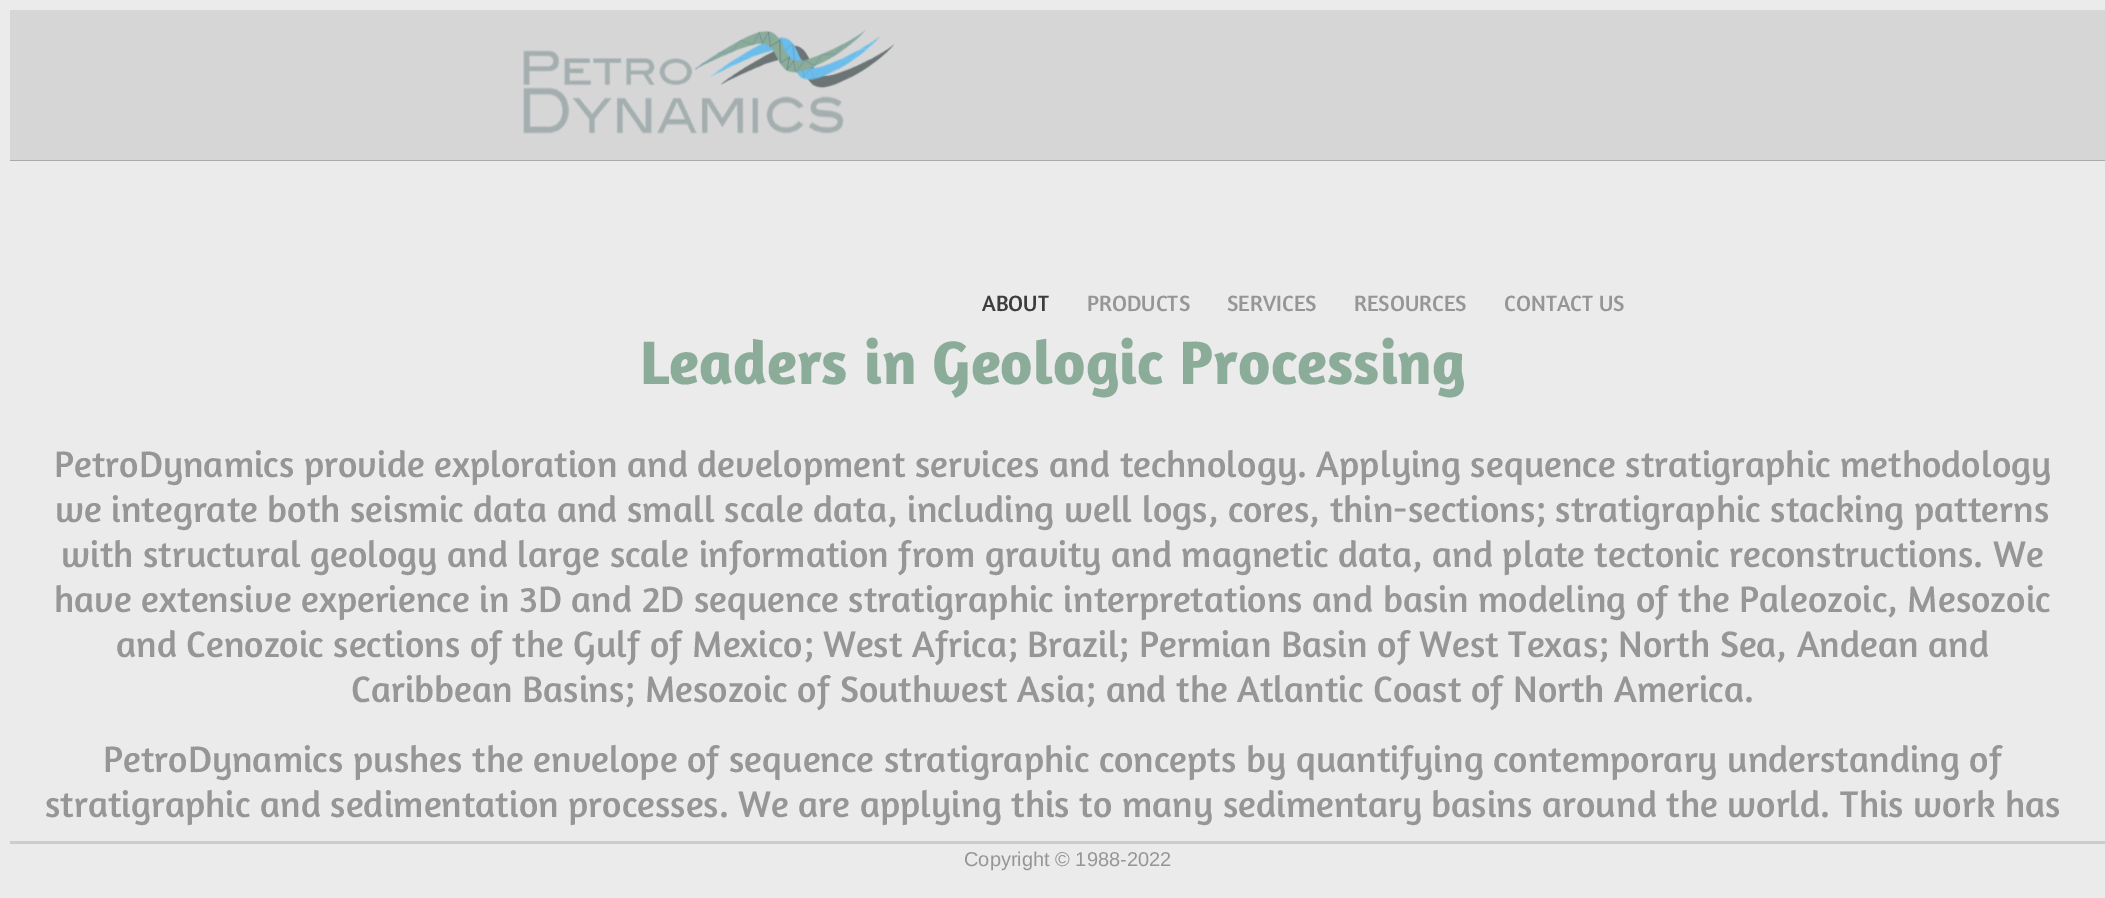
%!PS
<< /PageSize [2105 898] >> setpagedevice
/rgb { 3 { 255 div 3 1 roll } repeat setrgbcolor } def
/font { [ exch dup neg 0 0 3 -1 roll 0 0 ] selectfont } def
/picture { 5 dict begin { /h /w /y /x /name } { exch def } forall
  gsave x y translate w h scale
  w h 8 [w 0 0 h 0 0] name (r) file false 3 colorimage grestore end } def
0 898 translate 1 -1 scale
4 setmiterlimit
235 235 235 rgb
0 0 2105 898 rectfill
214 214 214 rgb
10 10 2095 150 rectfill
170 170 170 rgb
10 160 2095 1 rectfill
(img/1.rgb) 523 30 371 104 picture
204 204 204 rgb
10 841 2095 3 rectfill
/Amaranth-Regular 22.5 font
61 61 61 rgb
982 311 moveto (ABOUT) show
150 150 150 rgb
[
  [(PRODUCTS) 1087 311]
  [(SERVICES) 1227 311]
  [(RESOURCES) 1354 311]
  [(CONTACT US) 1504 311]
] { aload pop moveto show } forall
/Amaranth-Bold 62.5 font
140 172 154 rgb
640 384 moveto (Leaders in Geologic Processing) show
/Amaranth-Regular 37.5 font
150 150 150 rgb
[
  [(PetroDynamics provide exploration and development services and technology. Applying sequence stratigraphic methodology) 54 477]
  [(we integrate both seismic data and small scale data, including well logs, cores, thin-sections; stratigraphic stacking patterns) 55 522]
  [(with structural geology and large scale information from gravity and magnetic data, and plate tectonic reconstructions. We) 61 567]
  [(have extensive experience in 3D and 2D sequence stratigraphic interpretations and basin modeling of the Paleozoic, Mesozoic) 54 612]
  [(and Cenozoic sections of the Gulf of Mexico; West Africa; Brazil; Permian Basin of West Texas; North Sea, Andean and) 116 657]
  [(Caribbean Basins; Mesozoic of Southwest Asia; and the Atlantic Coast of North America.) 351 702]
  [(PetroDynamics pushes the envelope of sequence stratigraphic concepts by quantifying contemporary understanding of) 103 772]
  [(stratigraphic and sedimentation processes. We are applying this to many sedimentary basins around the world. This work has) 45 817]
] { aload pop moveto show } forall
/LiberationSans-Regular 20 font
964 866 moveto (Copyright © 1988-2022) show
showpage
